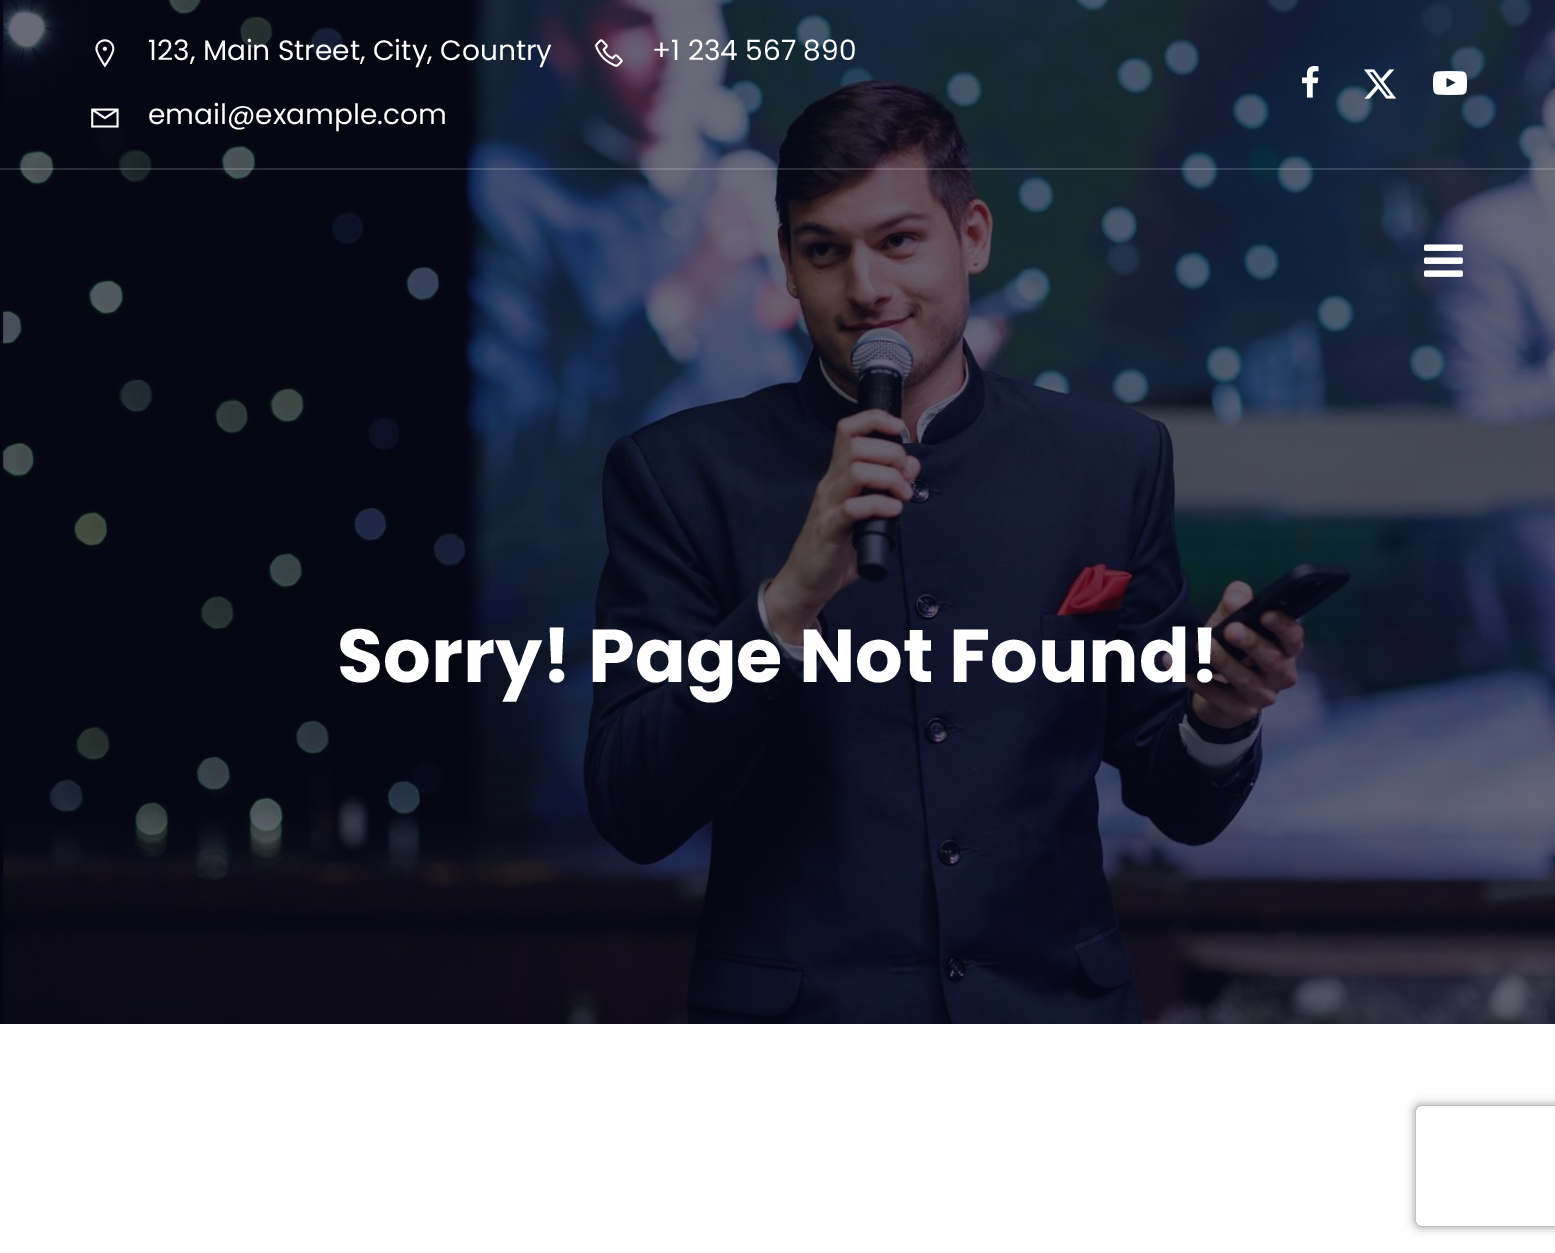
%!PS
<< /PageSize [1555 1253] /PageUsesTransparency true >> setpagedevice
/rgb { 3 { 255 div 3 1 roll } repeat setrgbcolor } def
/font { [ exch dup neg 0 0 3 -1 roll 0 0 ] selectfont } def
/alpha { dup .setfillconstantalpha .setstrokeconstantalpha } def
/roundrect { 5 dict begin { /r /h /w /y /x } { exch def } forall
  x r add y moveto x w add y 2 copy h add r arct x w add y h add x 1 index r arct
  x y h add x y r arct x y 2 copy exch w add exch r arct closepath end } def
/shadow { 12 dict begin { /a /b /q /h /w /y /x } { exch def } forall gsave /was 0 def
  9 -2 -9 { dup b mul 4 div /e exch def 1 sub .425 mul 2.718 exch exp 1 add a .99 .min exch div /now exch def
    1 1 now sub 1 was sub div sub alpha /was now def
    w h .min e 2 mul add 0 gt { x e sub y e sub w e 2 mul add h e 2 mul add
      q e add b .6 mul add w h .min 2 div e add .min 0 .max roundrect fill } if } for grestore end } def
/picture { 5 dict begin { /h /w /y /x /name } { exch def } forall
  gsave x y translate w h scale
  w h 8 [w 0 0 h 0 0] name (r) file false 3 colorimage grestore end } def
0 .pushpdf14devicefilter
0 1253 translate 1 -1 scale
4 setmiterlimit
255 255 255 rgb
0 0 1555 1253 rectfill
(img/8.rgb) 0 0 1555 1024 picture
0.15 alpha
0 168 1555 2 rectfill
1 alpha
(img/1.rgb) 95 39 20 29 picture
(img/2.rgb) 595 39 28 28 picture
(img/3.rgb) 91 108 28 20 picture
(img/4.rgb) 1302 66 17 32 picture
(img/5.rgb) 1364 69 33 30 picture
(img/6.rgb) 1433 71 34 24 picture
(img/7.rgb) 1424 244 39 33 picture
gsave
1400 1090 moveto 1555 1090 lineto 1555 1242 lineto 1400 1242 lineto closepath 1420 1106 moveto 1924 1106 lineto 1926 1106 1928 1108 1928 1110 curveto 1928 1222 lineto 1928 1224 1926 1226 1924 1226 curveto 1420 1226 lineto 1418 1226 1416 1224 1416 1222 curveto 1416 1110 lineto 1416 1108 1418 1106 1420 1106 curveto closepath eoclip newpath
128 128 128 rgb
1416 1106 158 120 4 5 1 shadow
grestore
/Poppins-Regular 28 font
[
  [(123, Main Street, City, Country) 148 60]
  [(+1 234 567 890) 652 60]
  [(email@example.com) 148 124]
] { aload pop moveto show } forall
/Poppins-Bold 75 font
337 682 moveto (Sorry! Page Not Found!) show
.poppdf14devicefilter showpage
